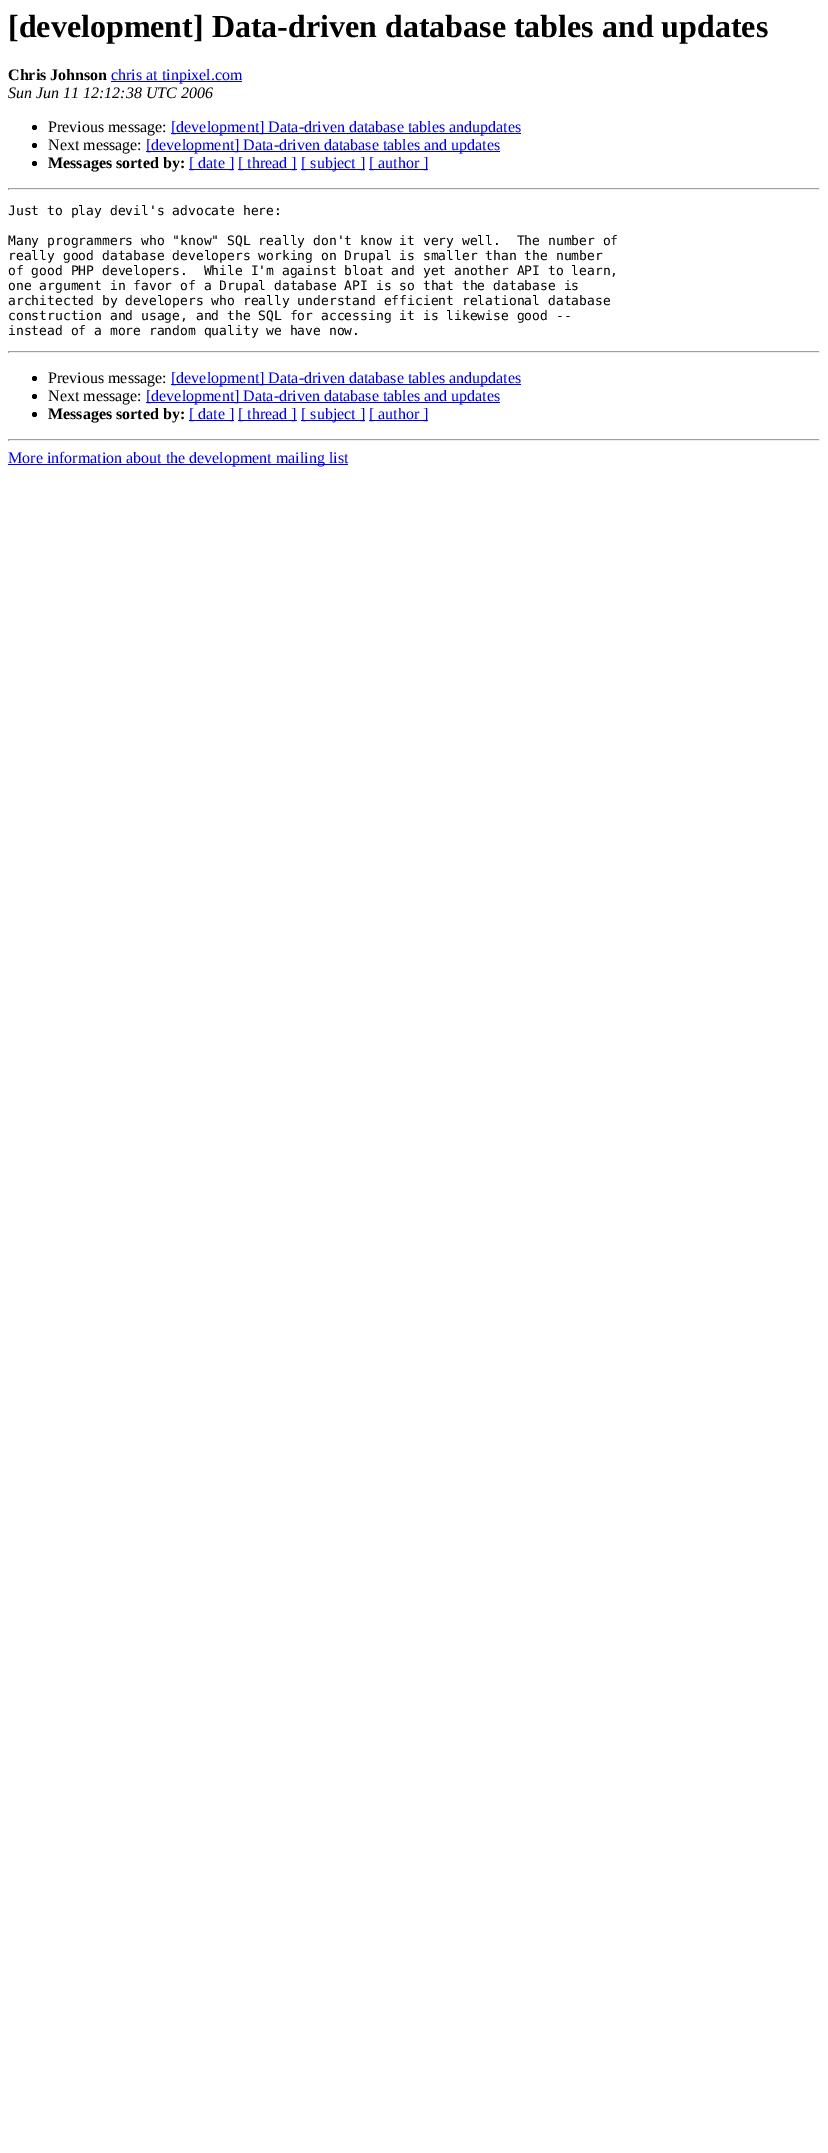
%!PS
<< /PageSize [828 2153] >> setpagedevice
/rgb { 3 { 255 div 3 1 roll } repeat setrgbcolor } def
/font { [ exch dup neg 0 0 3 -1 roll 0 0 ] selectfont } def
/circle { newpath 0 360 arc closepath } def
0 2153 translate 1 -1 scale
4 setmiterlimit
255 255 255 rgb
0 0 828 2153 rectfill
0 0 238 rgb
111 81 131 1 rectfill
0 0 0 rgb
34.5 127.5 2.5 circle fill
0 0 238 rgb
171 133 350 1 rectfill
0 0 0 rgb
34.5 145.5 2.5 circle fill
0 0 238 rgb
146 151 354 1 rectfill
0 0 0 rgb
34.5 163.5 2.5 circle fill
[
  [189 169 45 1 0 0 238]
  [238 169 59 1 0 0 238]
  [301 169 64 1 0 0 238]
  [369 169 59 1 0 0 238]
  [8 188 812 1 159 159 159]
  [819 188 1 2 238 238 238]
  [8 189 812 1 238 238 238]
  [8 188 1 2 159 159 159]
  [8 351 812 1 159 159 159]
  [819 351 1 2 238 238 238]
  [8 352 812 1 238 238 238]
  [8 351 1 2 159 159 159]
] { aload pop rgb rectfill } forall
0 0 0 rgb
34.5 378.5 2.5 circle fill
0 0 238 rgb
171 384 350 1 rectfill
0 0 0 rgb
34.5 396.5 2.5 circle fill
0 0 238 rgb
146 402 354 1 rectfill
0 0 0 rgb
34.5 414.5 2.5 circle fill
[
  [189 420 45 1 0 0 238]
  [238 420 59 1 0 0 238]
  [301 420 64 1 0 0 238]
  [369 420 59 1 0 0 238]
  [8 439 812 1 159 159 159]
  [819 439 1 2 238 238 238]
  [8 440 812 1 238 238 238]
  [8 439 1 2 159 159 159]
  [8 464 340 1 0 0 238]
] { aload pop rgb rectfill } forall
/LiberationSerif-Bold 32 font
0 0 0 rgb
8 37 moveto ([development] Data-driven database tables and updates) show
/LiberationSerif-Bold 16 font
8 80 moveto (Chris Johnson) show
/LiberationSerif-Regular 16 font
0 0 238 rgb
111 80 moveto (chris at tinpixel.com) show
/LiberationSerif-Italic 16 font
0 0 0 rgb
8 98 moveto (Sun Jun 11 12:12:38 UTC 2006) show
/LiberationSerif-Regular 16 font
48 132 moveto (Previous message:) show
0 0 238 rgb
171 132 moveto ([development] Data-driven database tables andupdates) show
0 0 0 rgb
48 150 moveto (Next message:) show
0 0 238 rgb
146 150 moveto ([development] Data-driven database tables and updates) show
/LiberationSerif-Bold 16 font
0 0 0 rgb
48 168 moveto (Messages sorted by:) show
/LiberationSerif-Regular 16 font
0 0 238 rgb
[
  [([ date ]) 189 168]
  [([ thread ]) 238 168]
  [([ subject ]) 301 168]
  [([ author ]) 369 168]
] { aload pop moveto show } forall
/DejaVuSansMono-Regular 13 font
0 0 0 rgb
[
  [(Just to play devil's advocate here:) 8 215]
  [(Many programmers who "know" SQL really don't know it very well.  The number of) 8 245]
  [(really good database developers working on Drupal is smaller than the number) 8 260]
  [(of good PHP developers.  While I'm against bloat and yet another API to learn,) 8 275]
  [(one argument in favor of a Drupal database API is so that the database is) 8 290]
  [(architected by developers who really understand efficient relational database) 8 305]
  [(construction and usage, and the SQL for accessing it is likewise good --) 8 320]
  [(instead of a more random quality we have now.) 8 335]
] { aload pop moveto show } forall
/LiberationSerif-Regular 16 font
48 383 moveto (Previous message:) show
0 0 238 rgb
171 383 moveto ([development] Data-driven database tables andupdates) show
0 0 0 rgb
48 401 moveto (Next message:) show
0 0 238 rgb
146 401 moveto ([development] Data-driven database tables and updates) show
/LiberationSerif-Bold 16 font
0 0 0 rgb
48 419 moveto (Messages sorted by:) show
/LiberationSerif-Regular 16 font
0 0 238 rgb
[
  [([ date ]) 189 419]
  [([ thread ]) 238 419]
  [([ subject ]) 301 419]
  [([ author ]) 369 419]
  [(More information about the development mailing list) 8 463]
] { aload pop moveto show } forall
showpage
